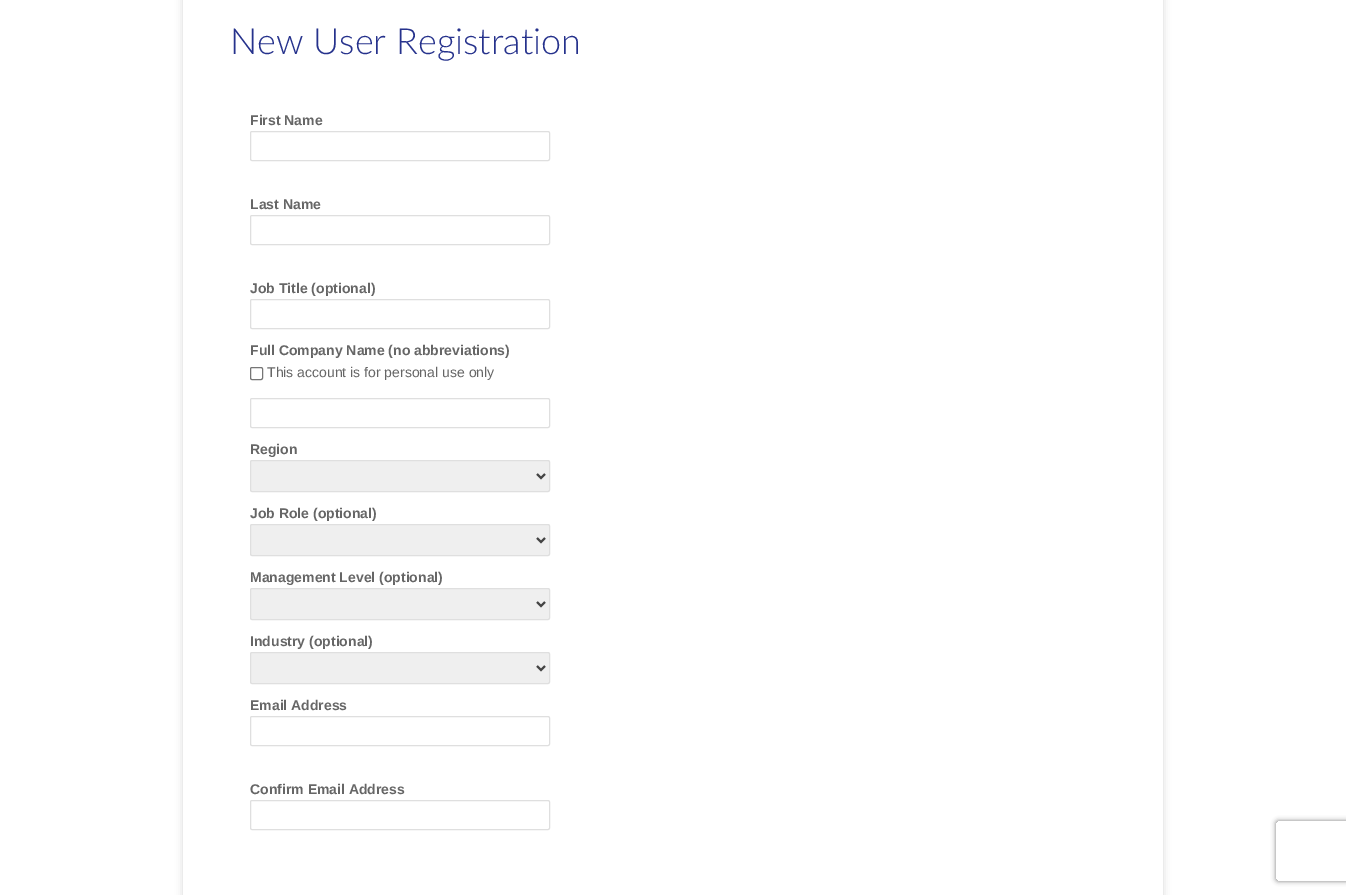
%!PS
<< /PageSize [1346 895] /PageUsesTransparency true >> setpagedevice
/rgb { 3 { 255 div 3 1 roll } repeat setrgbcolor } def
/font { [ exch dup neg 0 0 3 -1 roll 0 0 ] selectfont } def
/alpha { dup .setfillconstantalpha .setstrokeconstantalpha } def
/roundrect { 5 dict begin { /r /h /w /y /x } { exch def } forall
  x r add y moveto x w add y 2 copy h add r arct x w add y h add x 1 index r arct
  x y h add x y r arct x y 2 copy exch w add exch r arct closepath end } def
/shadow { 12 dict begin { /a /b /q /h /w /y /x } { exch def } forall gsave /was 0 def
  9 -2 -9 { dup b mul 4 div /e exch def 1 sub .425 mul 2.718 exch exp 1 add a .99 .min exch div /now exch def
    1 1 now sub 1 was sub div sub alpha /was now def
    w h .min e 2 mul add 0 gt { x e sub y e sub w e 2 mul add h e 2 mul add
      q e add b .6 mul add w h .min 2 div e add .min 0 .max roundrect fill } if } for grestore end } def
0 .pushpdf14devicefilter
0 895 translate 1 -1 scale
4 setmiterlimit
255 255 255 rgb
0 0 1346 895 rectfill
gsave
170 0 moveto 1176 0 lineto 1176 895 lineto 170 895 lineto closepath 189 -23 moveto 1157 -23 lineto 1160.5 -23 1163 -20.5 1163 -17 curveto 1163 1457 lineto 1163 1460.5 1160.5 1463 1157 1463 curveto 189 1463 lineto 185.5 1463 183 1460.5 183 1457 curveto 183 -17 lineto 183 -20.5 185.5 -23 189 -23 curveto closepath eoclip newpath
0 0 0 rgb
183 -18 980 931 6 4 0.15 shadow
grestore
223 223 223 rgb
250.5 131.5 299 29 1.5 roundrect stroke
250.5 215.5 299 29 1.5 roundrect stroke
250.5 299.5 299 29 1.5 roundrect stroke
118 118 118 rgb
250.5 367.5 12 12 1.5 roundrect stroke
223 223 223 rgb
250.5 398.5 299 29 1.5 roundrect stroke
239 239 239 rgb
250.5 460.5 299 31 1.5 roundrect gsave fill grestore
223 223 223 rgb
stroke
68 68 68 rgb
2 setlinewidth
537 474 moveto 541 478 lineto 545 474 lineto stroke
239 239 239 rgb
250.5 524.5 299 31 1.5 roundrect gsave fill grestore
223 223 223 rgb
1 setlinewidth
stroke
68 68 68 rgb
2 setlinewidth
537 538 moveto 541 542 lineto 545 538 lineto stroke
239 239 239 rgb
250.5 588.5 299 31 1.5 roundrect gsave fill grestore
223 223 223 rgb
1 setlinewidth
stroke
68 68 68 rgb
2 setlinewidth
537 602 moveto 541 606 lineto 545 602 lineto stroke
239 239 239 rgb
250.5 652.5 299 31 1.5 roundrect gsave fill grestore
223 223 223 rgb
1 setlinewidth
stroke
68 68 68 rgb
2 setlinewidth
537 666 moveto 541 670 lineto 545 666 lineto stroke
223 223 223 rgb
1 setlinewidth
250.5 716.5 299 29 1.5 roundrect stroke
250.5 800.5 299 29 1.5 roundrect stroke
gsave
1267 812 moveto 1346 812 lineto 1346 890 lineto 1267 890 lineto closepath 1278 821 moveto 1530 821 lineto 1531 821 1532 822 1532 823 curveto 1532 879 lineto 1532 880 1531 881 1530 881 curveto 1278 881 lineto 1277 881 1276 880 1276 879 curveto 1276 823 lineto 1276 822 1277 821 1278 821 curveto closepath eoclip newpath
128 128 128 rgb
1276 821 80 60 2 2.5 1 shadow
grestore
/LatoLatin-Light 36 font
38 50 140 rgb
230 54 moveto (New User Registration) show
/LiberationSans-Bold 14 font
102 102 102 rgb
[
  [(First Name) 250 125]
  [(Last Name) 250 209]
  [(Job Title \(optional\)) 250 293]
  [(Full Company Name \(no abbreviations\)) 250 355]
] { aload pop moveto show } forall
/LiberationSans-Regular 14 font
267 377 moveto (This account is for personal use only) show
/LiberationSans-Bold 14 font
[
  [(Region) 250 454]
  [(Job Role \(optional\)) 250 518]
  [(Management Level \(optional\)) 250 582]
  [(Industry \(optional\)) 250 646]
  [(Email Address) 250 710]
  [(Confirm Email Address) 250 794]
] { aload pop moveto show } forall
.poppdf14devicefilter showpage
